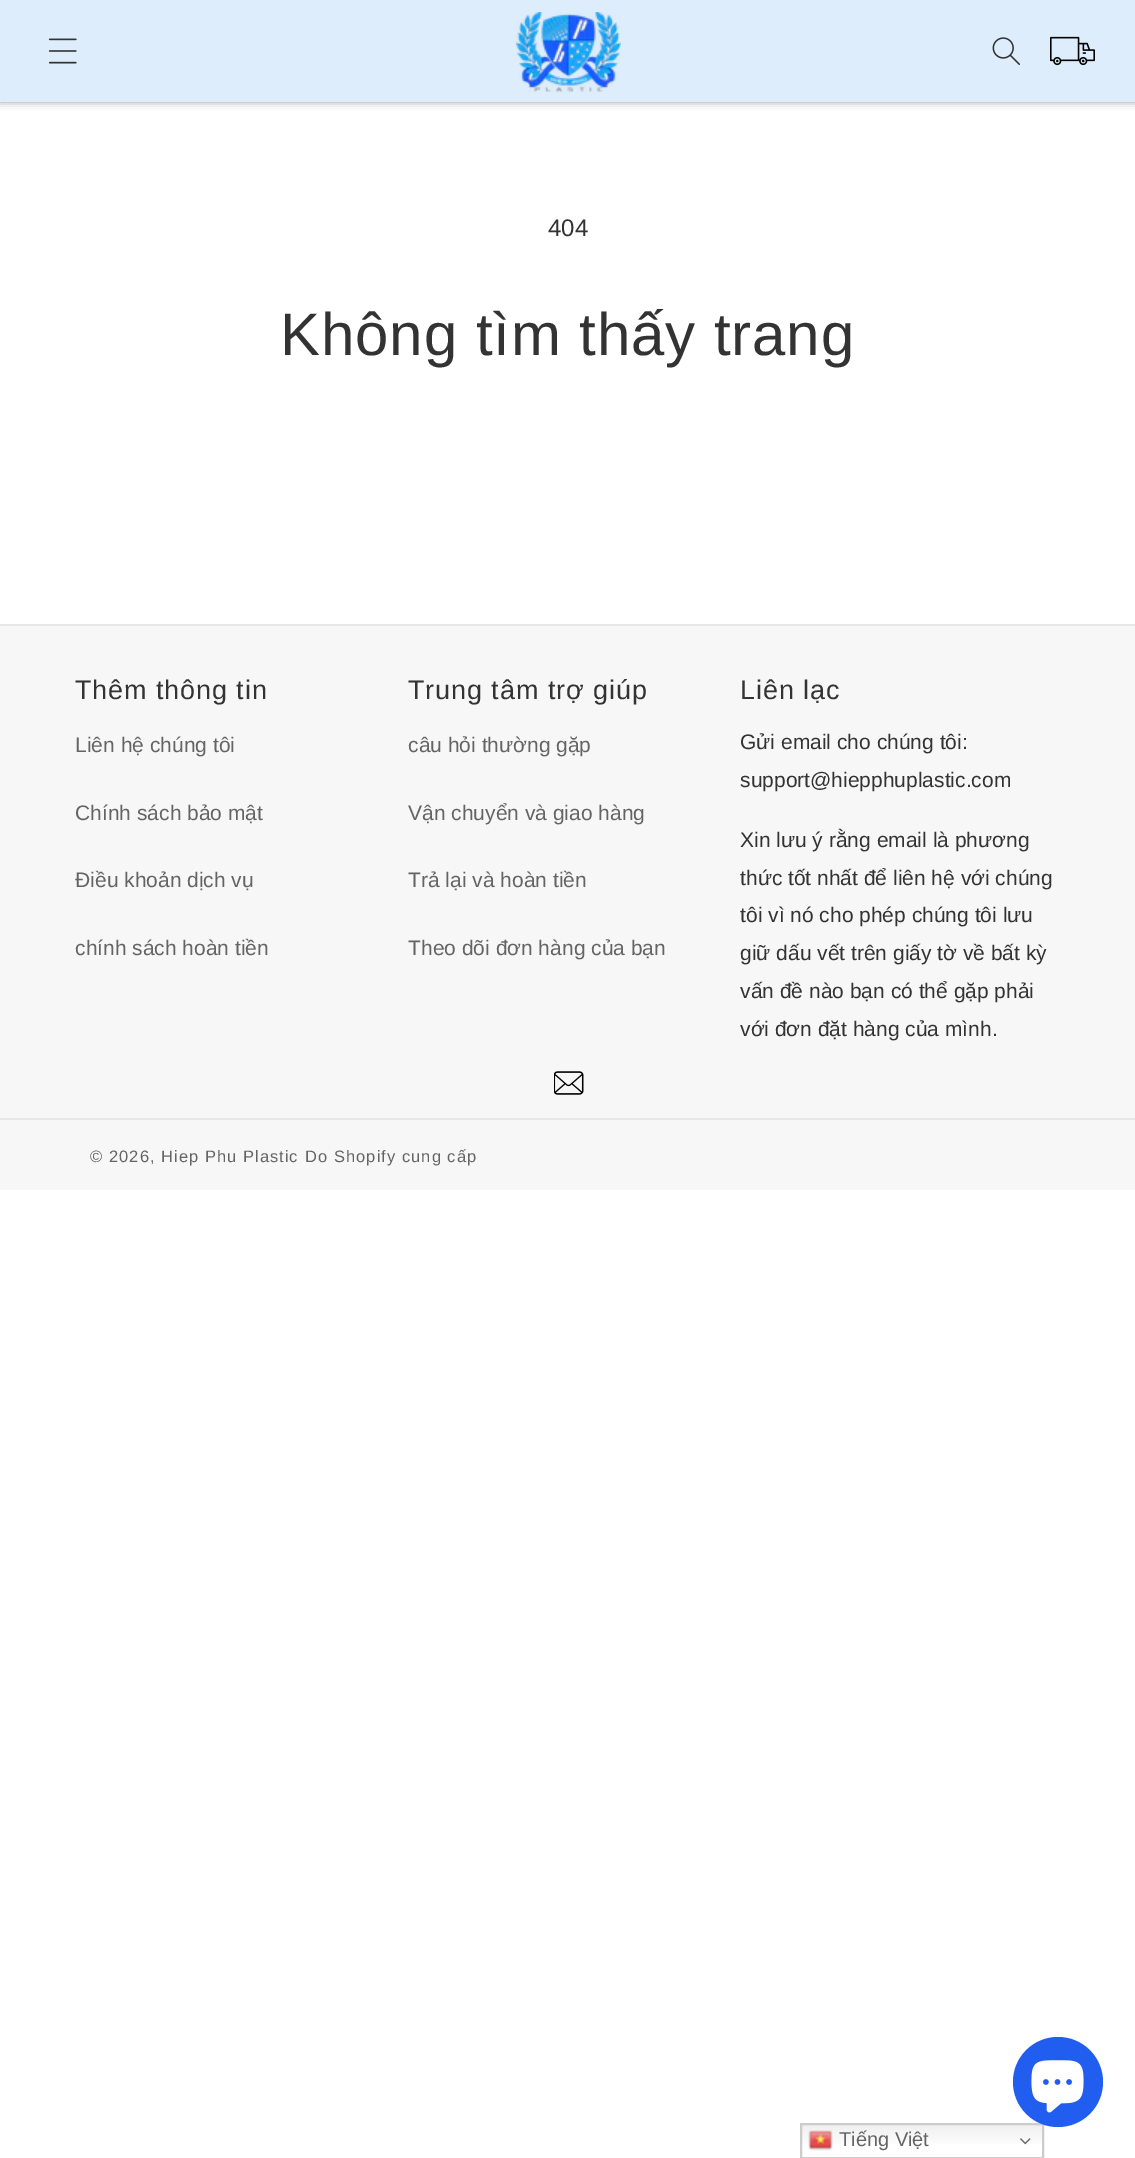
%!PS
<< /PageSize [1135 2158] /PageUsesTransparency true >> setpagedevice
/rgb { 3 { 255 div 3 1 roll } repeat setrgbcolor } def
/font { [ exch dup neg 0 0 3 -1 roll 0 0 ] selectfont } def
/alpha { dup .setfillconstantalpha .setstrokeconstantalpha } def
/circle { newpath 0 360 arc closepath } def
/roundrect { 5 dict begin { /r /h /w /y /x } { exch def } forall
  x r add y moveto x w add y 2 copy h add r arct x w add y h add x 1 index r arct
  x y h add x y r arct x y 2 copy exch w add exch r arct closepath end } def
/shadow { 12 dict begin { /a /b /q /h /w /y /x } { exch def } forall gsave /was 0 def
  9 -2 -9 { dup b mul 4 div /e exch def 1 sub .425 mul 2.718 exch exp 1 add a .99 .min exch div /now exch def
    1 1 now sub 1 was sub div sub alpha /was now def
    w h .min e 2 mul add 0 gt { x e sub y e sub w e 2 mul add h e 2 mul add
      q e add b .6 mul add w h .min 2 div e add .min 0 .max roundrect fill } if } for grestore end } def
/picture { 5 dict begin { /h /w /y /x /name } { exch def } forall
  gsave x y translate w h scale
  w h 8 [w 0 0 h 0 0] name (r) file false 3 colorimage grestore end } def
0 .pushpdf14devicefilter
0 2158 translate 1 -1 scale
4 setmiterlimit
255 255 255 rgb
0 0 1135 2158 rectfill
51 51 51 rgb
0 0 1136 102 0 4 0.5 shadow
221 237 252 rgb
0 0 1135 102 rectfill
(img/1.rgb) 48 38 29 26 picture
(img/2.rgb) 516 12 105 80 picture
(img/3.rgb) 992 37 28 28 picture
(img/4.rgb) 1050 36 45 30 picture
247 247 247 rgb
0 626 1135 564 rectfill
231 231 231 rgb
0 624 1135 2 rectfill
(img/5.rgb) 554 1071 30 24 picture
0 1118 1135 2 rectfill
gsave 802 2125 moveto 1042 2125 lineto 1042 2144 lineto 802 2144 lineto closepath clip newpath
<< /ShadingType 2 /ColorSpace /DeviceRGB /Coords [922 2123 922 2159] /Extend [true true] /Function << /FunctionType 3 /Domain [0 1] /Functions [<< /FunctionType 2 /Domain [0 1] /C0 [0.937 0.937 0.937] /C1 [1 1 1] /N 1 >> << /FunctionType 2 /Domain [0 1] /C0 [1 1 1] /C1 [1 1 1] /N 1 >>] /Bounds [0.7] /Encode [0 1 0 1] >> >> shfill grestore
204 204 204 rgb
2 setlinewidth
801 2124 242 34 rectstroke
33 93 239 rgb
1058 2082 45 circle fill
(img/6.rgb) 1031 2060 53 53 picture
(img/7.rgb) 808 2130 25 21 picture
(img/8.rgb) 1020 2138 11 7 picture
/LiberationSans-Regular 24 font
51 51 51 rgb
548 236 moveto (404) show
/LiberationSans-Regular 60 font
280 355 moveto 0.9 0 (Không tìm thấy trang) ashow
/LiberationSans-Regular 27 font
75 699 moveto 0.9 0 (Thêm thông tin) ashow
/LiberationSans-Regular 21 font
100 100 100 rgb
[
  [(Liên hệ chúng tôi) 75 752]
  [(Chính sách bảo mật) 75 820]
  [(Điều khoản dịch vụ) 75 887]
  [(chính sách hoàn tiền) 75 955]
] { aload pop moveto show } forall
/LiberationSans-Regular 27 font
51 51 51 rgb
408 699 moveto 0.9 0 (Trung tâm trợ giúp) ashow
/LiberationSans-Regular 21 font
100 100 100 rgb
[
  [(câu hỏi thường gặp) 408 752]
  [(Vận chuyển và giao hàng) 408 820]
  [(Trả lại và hoàn tiền) 408 887]
  [(Theo dõi đơn hàng của bạn) 408 955]
] { aload pop moveto show } forall
/LiberationSans-Regular 27 font
51 51 51 rgb
740 699 moveto 0.9 0 (Liên lạc) ashow
/LiberationSans-Regular 21 font
[
  [(Gửi email cho chúng tôi:) 740 749]
  [(support@hiepphuplastic.com) 740 787]
  [(Xin lưu ý rằng email là phương) 740 847]
  [(thức tốt nhất để liên hệ với chúng) 740 885]
  [(tôi vì nó cho phép chúng tôi lưu) 740 922]
  [(giữ dấu vết trên giấy tờ về bất kỳ) 740 960]
  [(vấn đề nào bạn có thể gặp phải) 740 998]
  [(với đơn đặt hàng của mình.) 740 1036]
] { aload pop moveto show } forall
/LiberationSans-Regular 16.5 font
100 100 100 rgb
90 1162 moveto 1.05 0 (© 2026, Hiep Phu Plastic) ashow
305 1162 moveto 1.05 0 (Do Shopify cung cấp) ashow
/LiberationSans-Regular 20 font
839 2146 moveto (Tiếng Việt) show
.poppdf14devicefilter showpage
